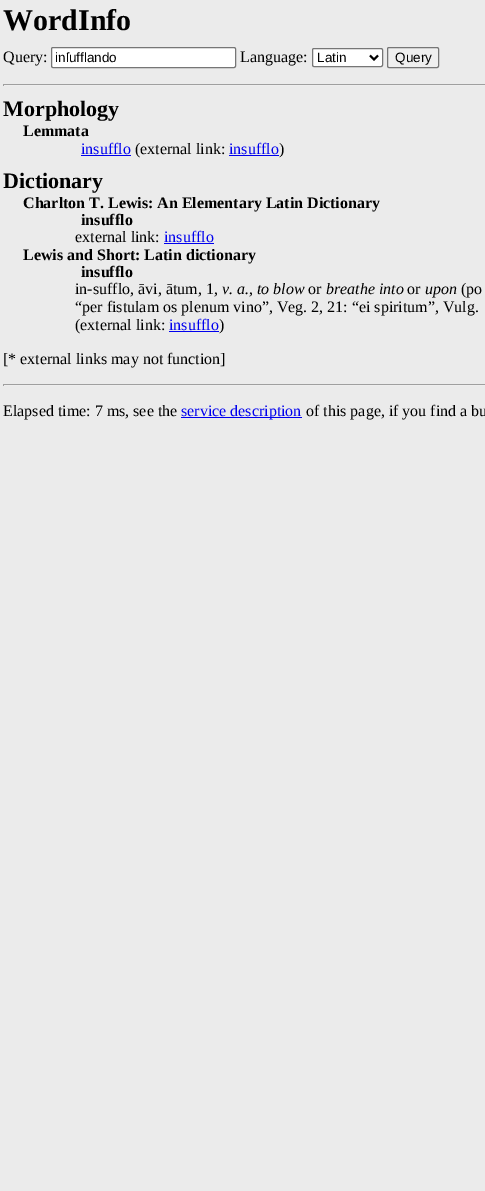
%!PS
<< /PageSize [485 1191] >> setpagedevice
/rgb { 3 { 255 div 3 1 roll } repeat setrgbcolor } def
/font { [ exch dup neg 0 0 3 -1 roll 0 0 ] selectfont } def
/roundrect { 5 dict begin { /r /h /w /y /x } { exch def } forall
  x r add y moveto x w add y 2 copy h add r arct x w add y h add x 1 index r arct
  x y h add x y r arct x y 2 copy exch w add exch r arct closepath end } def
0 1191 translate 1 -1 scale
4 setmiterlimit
235 235 235 rgb
0 0 485 1191 rectfill
255 255 255 rgb
51.5 47.5 184 20 1.5 roundrect gsave fill grestore
118 118 118 rgb
stroke
255 255 255 rgb
312.5 48.5 70 18 1.5 roundrect gsave fill grestore
118 118 118 rgb
stroke
0 0 0 rgb
2 setlinewidth
370 55.5 moveto 374 59.5 lineto 378 55.5 lineto stroke
239 239 239 rgb
387.5 47.5 51 20 1.5 roundrect gsave fill grestore
118 118 118 rgb
1 setlinewidth
stroke
[
  [3 84 482 1 159 159 159]
  [3 85 482 1 238 238 238]
  [3 84 1 2 159 159 159]
  [81 155 50 1 0 0 238]
  [229 155 50 1 0 0 238]
  [164 243 50 1 0 0 238]
  [169 331 50 1 0 0 238]
  [3 384 482 1 159 159 159]
  [3 385 482 1 238 238 238]
  [3 384 1 2 159 159 159]
  [181 417 121 1 0 0 238]
] { aload pop rgb rectfill } forall
/LiberationSerif-Bold 30 font
0 0 0 rgb
3 30 moveto (WordInfo) show
/LiberationSerif-Regular 16 font
3 62 moveto (Query:) show
/LiberationSans-Regular 13.5 font
55 62 moveto (inſufflando) show
/LiberationSerif-Regular 16 font
240 62 moveto (Language:) show
/LiberationSans-Regular 13.5 font
317 62 moveto (Latin) show
395 62 moveto (Query) show
/LiberationSerif-Bold 22 font
3 116 moveto (Morphology) show
/LiberationSerif-Bold 16 font
23 136 moveto (Lemmata) show
/LiberationSerif-Regular 16 font
0 0 238 rgb
81 154 moveto (insufflo) show
0 0 0 rgb
135 154 moveto (\(external link:) show
0 0 238 rgb
229 154 moveto (insufflo) show
0 0 0 rgb
279 154 moveto (\)) show
/LiberationSerif-Bold 22 font
3 188 moveto (Dictionary) show
/LiberationSerif-Bold 16 font
23 208 moveto (Charlton T. Lewis: An Elementary Latin Dictionary) show
81 225 moveto (insufflo) show
/LiberationSerif-Regular 16 font
75 242 moveto (external link:) show
0 0 238 rgb
164 242 moveto (insufflo) show
/LiberationSerif-Bold 16 font
0 0 0 rgb
23 260 moveto (Lewis and Short: Latin dictionary) show
81 277 moveto (insufflo) show
/LiberationSerif-Regular 16 font
75 294 moveto (in-sufflo, āvi, ātum, 1,) show
/LiberationSerif-Italic 16 font
222 294 moveto (v. a.) show
/LiberationSerif-Regular 16 font
249 294 moveto (,) show
/LiberationSerif-Italic 16 font
257 294 moveto (to blow) show
/LiberationSerif-Regular 16 font
308 294 moveto (or) show
/LiberationSerif-Italic 16 font
326 294 moveto (breathe into) show
/LiberationSerif-Regular 16 font
407 294 moveto (or) show
/LiberationSerif-Italic 16 font
425 294 moveto (upon) show
/LiberationSerif-Regular 16 font
[
  [(\(po) 461 294]
  [(“per fistulam os plenum vino”, Veg. 2, 21: “ei spiritum”, Vulg.) 75 312]
  [(\(external link:) 75 330]
] { aload pop moveto show } forall
0 0 238 rgb
169 330 moveto (insufflo) show
0 0 0 rgb
[
  [(\)) 219 330]
  [([* external links may not function]) 3 364]
  [(Elapsed time: 7 ms, see the) 3 416]
] { aload pop moveto show } forall
0 0 238 rgb
181 416 moveto (service description) show
0 0 0 rgb
306 416 moveto (of this page, if you find a bu) show
showpage
